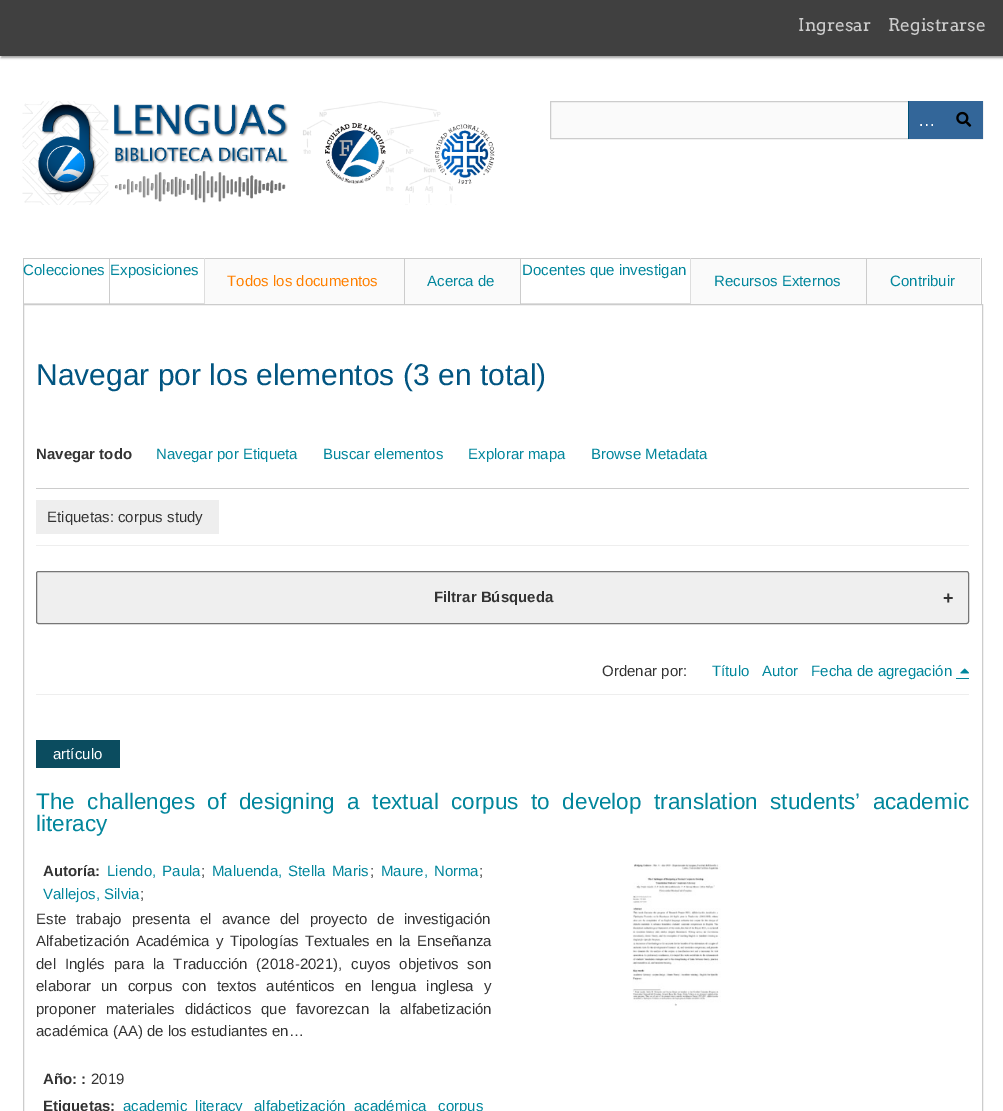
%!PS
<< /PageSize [1003 1111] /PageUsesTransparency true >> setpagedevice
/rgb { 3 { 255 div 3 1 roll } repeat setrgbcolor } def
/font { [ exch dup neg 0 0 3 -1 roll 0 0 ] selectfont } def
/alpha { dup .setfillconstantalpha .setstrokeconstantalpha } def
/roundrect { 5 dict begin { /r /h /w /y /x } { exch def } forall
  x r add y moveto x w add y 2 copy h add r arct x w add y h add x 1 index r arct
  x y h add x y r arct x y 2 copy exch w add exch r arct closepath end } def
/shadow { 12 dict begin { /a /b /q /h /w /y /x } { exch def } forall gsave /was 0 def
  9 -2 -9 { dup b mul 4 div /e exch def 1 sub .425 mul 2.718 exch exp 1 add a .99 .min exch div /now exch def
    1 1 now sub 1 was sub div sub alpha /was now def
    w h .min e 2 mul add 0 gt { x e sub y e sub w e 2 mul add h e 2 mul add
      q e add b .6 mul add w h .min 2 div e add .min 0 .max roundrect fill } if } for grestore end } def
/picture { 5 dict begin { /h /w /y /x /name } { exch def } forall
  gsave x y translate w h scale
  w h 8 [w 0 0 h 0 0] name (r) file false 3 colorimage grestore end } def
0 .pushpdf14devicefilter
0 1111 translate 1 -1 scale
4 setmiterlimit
255 255 255 rgb
0 0 1003 1111 rectfill
0 0 0 rgb
1 1 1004 57 0 1 0.35 shadow
64 64 64 rgb
0 0 1003 56 rectfill
(img/1.rgb) 22 101 473 104 picture
250 250 250 rgb
551 102 357 36 rectfill
204 204 204 rgb
550.5 101.5 432 37 rectstroke
51 102 153 rgb
909 101 74 38 rectfill
0 81 119 rgb
908 101 1 38 rectfill
(img/2.rgb) 956 111 16 16 picture
[
  [981 258 1 46 204 204 204]
  [204 258 316 1 204 204 204]
  [23 258 182 1 204 204 204]
  [23 303 87 1 222 222 222]
  [23 258 1 46 204 204 204]
  [204 258 1 46 222 222 222]
  [109 303 96 1 222 222 222]
  [109 258 1 46 204 204 204]
  [520 258 460 1 204 204 204]
  [690 258 1 46 222 222 222]
  [520 303 171 1 222 222 222]
  [520 258 1 46 204 204 204]
  [205 259 199 45 250 250 250]
  [405 259 115 45 250 250 250]
  [404 258 1 46 204 204 204]
  [691 259 175 45 250 250 250]
  [867 259 113 45 250 250 250]
  [866 258 1 46 204 204 204]
] { aload pop rgb rectfill } forall
23.5 304.5 959 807 rectstroke
[
  [36 488 933 1 204 204 204]
  [36 545 933 1 238 238 238]
  [36 500 183 34 238 238 238]
] { aload pop rgb rectfill } forall
239 239 239 rgb
36.5 571.5 932 52 2 roundrect gsave fill grestore
118 118 118 rgb
stroke
1 134 156 rgb
956 678 13 1 rectfill
(img/3.rgb) 960 668 9 6 picture
238 238 238 rgb
36 694 933 1 rectfill
11 76 95 rgb
36 740 84 28 rectfill
(img/4.rgb) 632 864 89 142 picture
/Arvo-Regular 17.5 font
204 204 204 rgb
798 31 moveto (Ingresar) show
888 31 moveto (Registrarse) show
/LiberationSans-Regular 17.5 font
255 255 255 rgb
918 126 moveto (…) show
/LiberationSans-Regular 15 font
1 134 156 rgb
[
  [(Colecciones) 23 275]
  [(Exposiciones) 110 275]
  [(Docentes que investigan) 522 275]
] { aload pop moveto show } forall
255 128 0 rgb
227 286 moveto (Todos los documentos) show
1 134 156 rgb
[
  [(Acerca de) 427 286]
  [(Recursos Externos) 714 286]
  [(Contribuir) 890 286]
] { aload pop moveto show } forall
/LiberationSans-Regular 30 font
1 85 129 rgb
36 385 moveto (Navegar por los elementos \(3 en total\)) show
/LiberationSans-Bold 15 font
51 51 51 rgb
36 459 moveto (Navegar todo) show
/LiberationSans-Regular 15 font
1 134 156 rgb
[
  [(Navegar por Etiqueta) 156 459]
  [(Buscar elementos) 323 459]
  [(Explorar mapa) 468 459]
  [(Browse Metadata) 591 459]
] { aload pop moveto show } forall
51 51 51 rgb
47 522 moveto (Etiquetas: corpus study) show
/LiberationSans-Bold 15 font
434 602 moveto (Filtrar Búsqueda) show
/LiberationSans-Bold 18 font
943 604 moveto (+) show
/LiberationSans-Regular 15 font
602 676 moveto (Ordenar por:) show
1 134 156 rgb
[
  [(Título) 712 676]
  [(Autor) 762 676]
  [(Fecha de agregación) 811 676]
] { aload pop moveto show } forall
255 255 255 rgb
53 759 moveto (artículo) show
/LiberationSans-Regular 22.5 font
1 134 156 rgb
36 809 moveto 6.25 0 32 (The challenges of designing a textual corpus to develop translation students’ academic) widthshow
36 831 moveto (literacy) show
/LiberationSans-Bold 15 font
51 51 51 rgb
43 876 moveto (Autoría:) show
/LiberationSans-Regular 15 font
1 134 156 rgb
107 876 moveto 2 0 32 (Liendo, Paula) widthshow
51 51 51 rgb
201 876 moveto (;) show
1 134 156 rgb
212 876 moveto 2 0 32 (Maluenda, Stella Maris) widthshow
51 51 51 rgb
370 876 moveto (;) show
1 134 156 rgb
381 876 moveto 2 0 32 (Maure, Norma) widthshow
51 51 51 rgb
479 876 moveto (;) show
1 134 156 rgb
43 899 moveto (Vallejos, Silvia) show
51 51 51 rgb
140 899 moveto (;) show
36 924 moveto 5.75 0 32 (Este trabajo presenta el avance del proyecto de investigación) widthshow
36 946 moveto 2 0 32 (Alfabetización Académica y Tipologías Textuales en la Enseñanza) widthshow
36 969 moveto 4.75 0 32 (del Inglés para la Traducción \(2018-2021\), cuyos objetivos son) widthshow
36 991 moveto 5.75 0 32 (elaborar un corpus con textos auténticos en lengua inglesa y) widthshow
36 1014 moveto 5.5 0 32 (proponer materiales didácticos que favorezcan la alfabetización) widthshow
36 1036 moveto (académica \(AA\) de los estudiantes en…) show
/LiberationSans-Bold 15 font
43 1084 moveto (Año: :) show
/LiberationSans-Regular 15 font
91 1084 moveto (2019) show
/LiberationSans-Bold 15 font
43 1111 moveto (Etiquetas:) show
/LiberationSans-Regular 15 font
1 134 156 rgb
123 1111 moveto 4 0 32 (academic literacy) widthshow
254 1111 moveto 4 0 32 (alfabetización académica) widthshow
438 1111 moveto (corpus) show
.poppdf14devicefilter showpage
